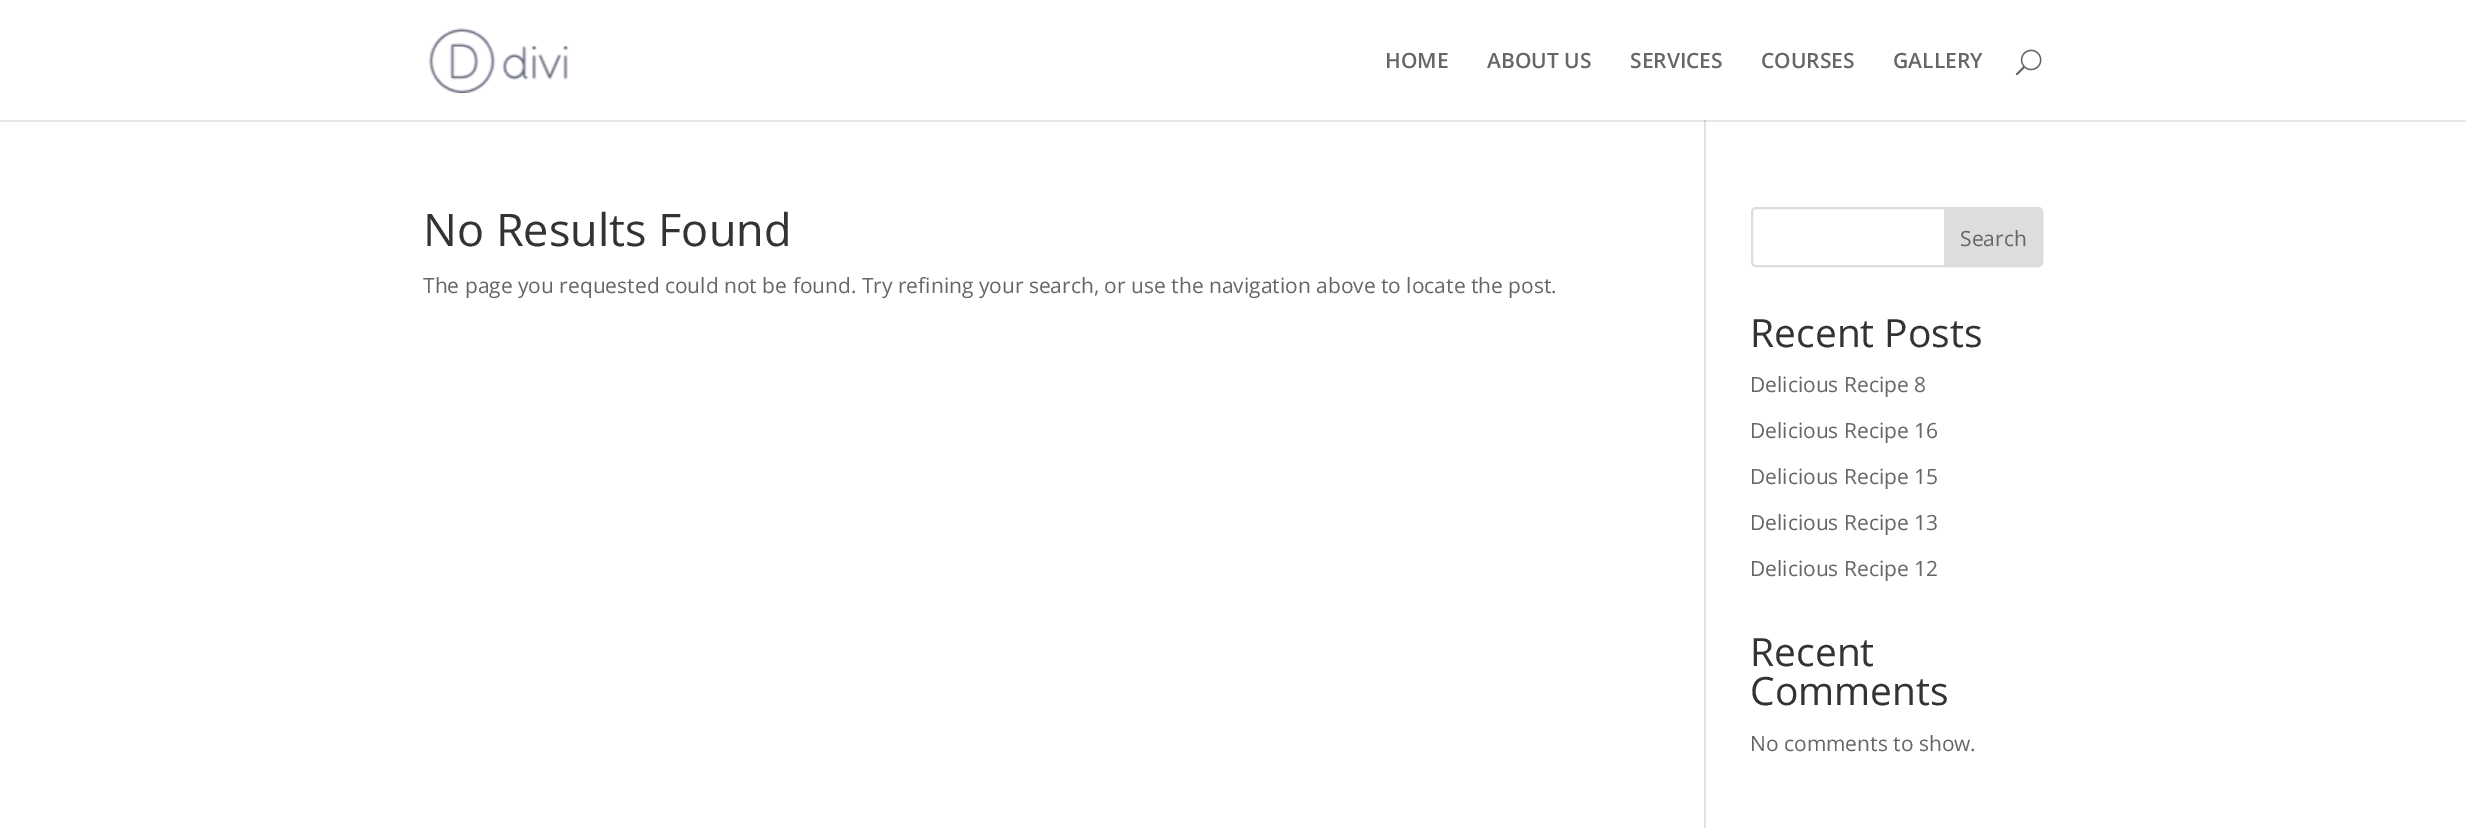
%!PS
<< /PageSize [2466 828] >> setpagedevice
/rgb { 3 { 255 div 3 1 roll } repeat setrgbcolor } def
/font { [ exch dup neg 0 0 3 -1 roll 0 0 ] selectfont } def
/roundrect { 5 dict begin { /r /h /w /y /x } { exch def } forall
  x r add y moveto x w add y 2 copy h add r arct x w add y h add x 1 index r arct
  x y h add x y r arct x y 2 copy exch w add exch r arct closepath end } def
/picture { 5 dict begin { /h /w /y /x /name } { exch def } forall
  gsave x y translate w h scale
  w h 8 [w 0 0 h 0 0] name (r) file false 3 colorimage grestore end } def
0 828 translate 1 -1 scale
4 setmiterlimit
255 255 255 rgb
0 0 2466 828 rectfill
230 230 230 rgb
0 120 2466 2 rectfill
(img/1.rgb) 428 28 141 65 picture
(img/2.rgb) 2015 49 27 27 picture
226 226 226 rgb
1704 120 2 708 rectfill
203 203 203 rgb
1704 120 2 2 rectfill
221 221 221 rgb
2 setlinewidth
1752 208 290 58 4 roundrect stroke
1945 208 moveto 2038 208 lineto 2040 208 2042 210 2042 212 curveto 2042 262 lineto 2042 264 2040 266 2038 266 curveto 1945 266 lineto closepath gsave fill grestore
stroke
/OpenSans-SemiBold 21 font
102 102 102 rgb
[
  [(HOME) 1385 68]
  [(ABOUT US) 1487 68]
  [(SERVICES) 1630 68]
  [(COURSES) 1761 68]
  [(GALLERY) 1893 68]
] { aload pop moveto show } forall
/OpenSans-Regular 45 font
51 51 51 rgb
423 246 moveto (No Results Found) show
/OpenSans-Regular 21 font
102 102 102 rgb
423 293 moveto (The page you requested could not be found. Try refining your search, or use the navigation above to locate the post.) show
1960 246 moveto (Search) show
/OpenSans-Regular 39 font
51 51 51 rgb
1750 347 moveto (Recent Posts) show
/OpenSans-Regular 21 font
102 102 102 rgb
[
  [(Delicious Recipe 8) 1750 392]
  [(Delicious Recipe 16) 1750 438]
  [(Delicious Recipe 15) 1750 484]
  [(Delicious Recipe 13) 1750 530]
  [(Delicious Recipe 12) 1750 576]
] { aload pop moveto show } forall
/OpenSans-Regular 39 font
51 51 51 rgb
1750 666 moveto (Recent) show
1750 705 moveto (Comments) show
/OpenSans-Regular 21 font
102 102 102 rgb
1750 751 moveto (No comments to show.) show
showpage
